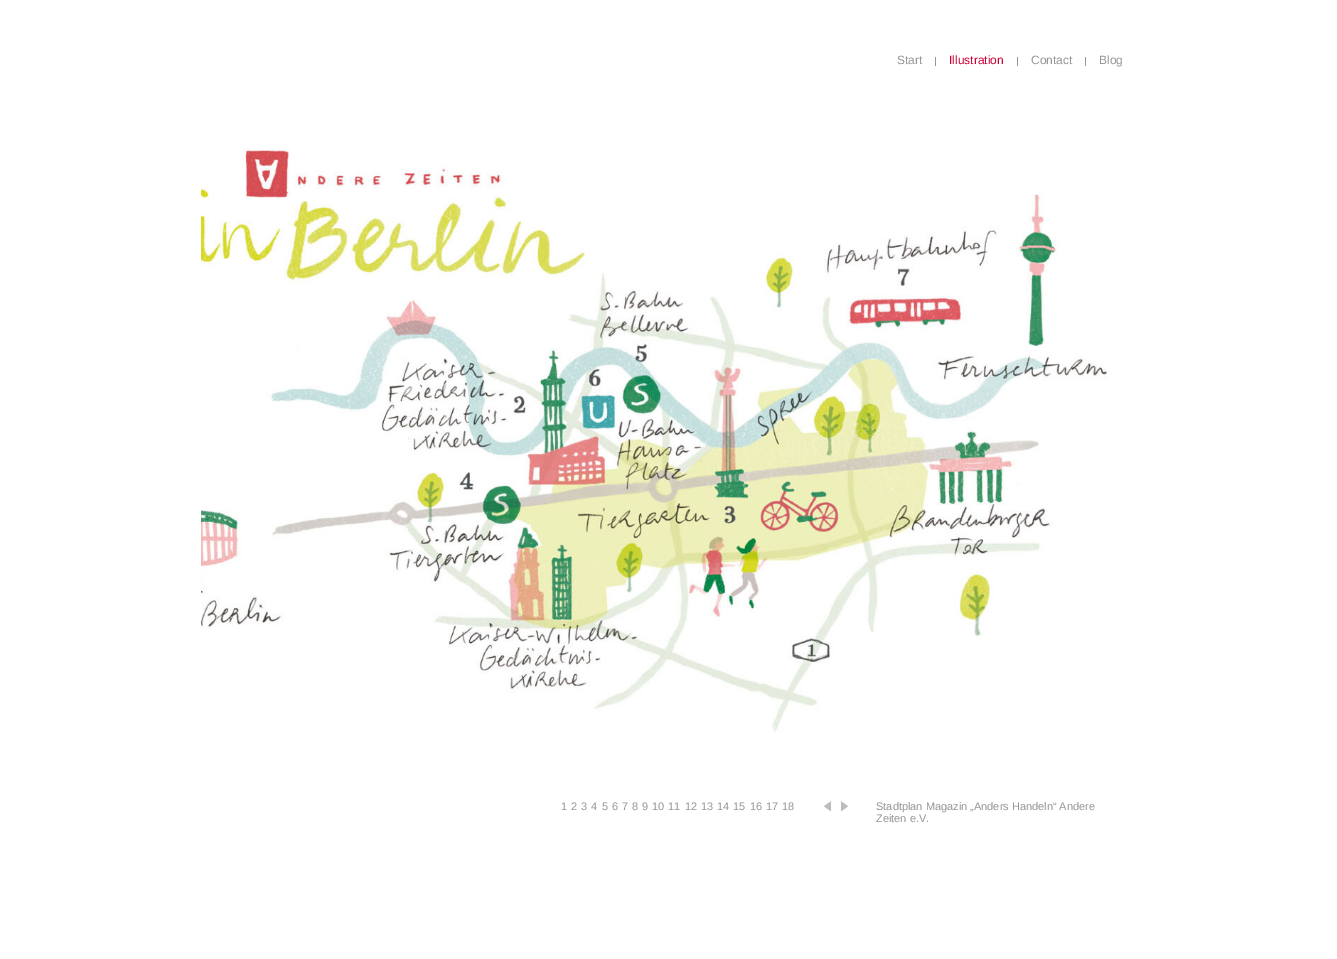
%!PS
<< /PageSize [1337 959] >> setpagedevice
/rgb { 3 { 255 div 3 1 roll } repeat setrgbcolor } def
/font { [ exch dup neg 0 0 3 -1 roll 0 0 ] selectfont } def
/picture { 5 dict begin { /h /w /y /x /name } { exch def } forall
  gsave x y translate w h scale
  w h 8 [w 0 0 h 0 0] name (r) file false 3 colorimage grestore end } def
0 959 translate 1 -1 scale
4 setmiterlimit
255 255 255 rgb
0 0 1337 959 rectfill
[
  [935 57 1 9 150 150 150]
  [1017 57 1 9 150 150 150]
  [1085 57 1 9 150 150 150]
] { aload pop rgb rectfill } forall
(img/1.rgb) 201 147 907 586 picture
(img/2.rgb) 824 801 7 10 picture
(img/3.rgb) 841 801 7 10 picture
/LiberationSans-Regular 12 font
897 64 moveto (Start) show
204 0 51 rgb
949 64 moveto (Illustration) show
150 150 150 rgb
1031 64 moveto (Contact) show
1099 64 moveto (Blog) show
/LiberationSans-Regular 11 font
[
  [(1) 561 810]
  [(2) 571 810]
  [(3) 581 810]
  [(4) 591 810]
  [(5) 602 810]
  [(6) 612 810]
  [(7) 622 810]
  [(8) 632 810]
  [(9) 642 810]
  [(10) 652 810]
  [(11) 668 810]
  [(12) 685 810]
  [(13) 701 810]
  [(14) 717 810]
  [(15) 733 810]
  [(16) 750 810]
  [(17) 766 810]
  [(18) 782 810]
  [(Stadtplan Magazin „Anders Handeln“ Andere) 876 810]
  [(Zeiten e.V.) 876 822]
] { aload pop moveto show } forall
showpage
